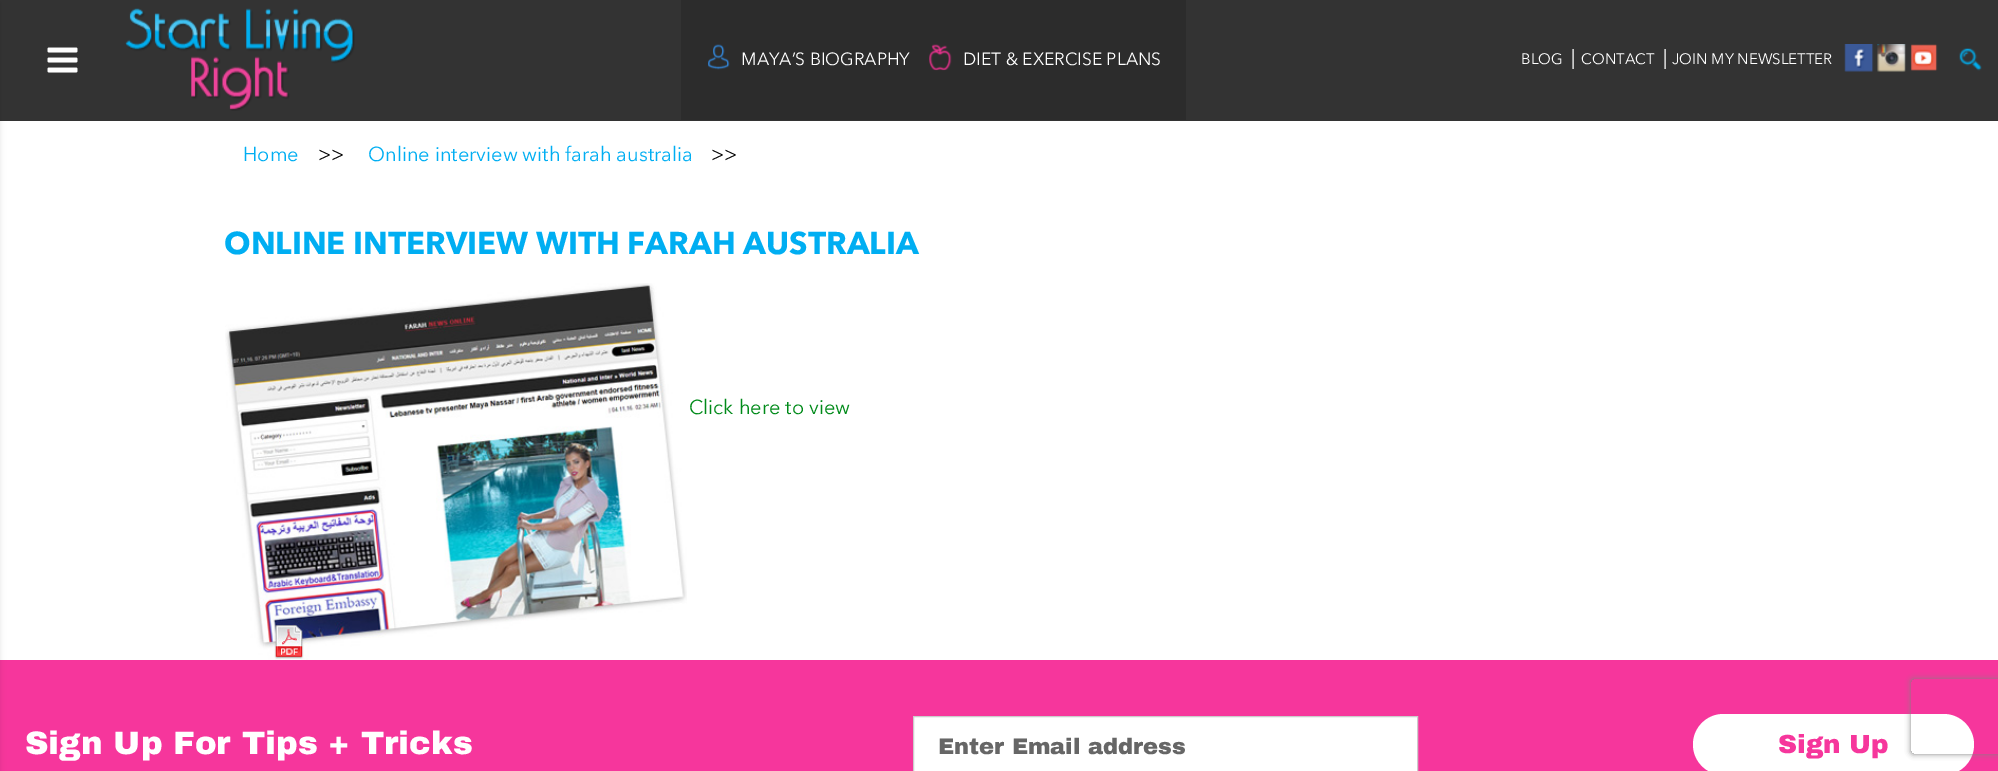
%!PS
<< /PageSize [1998 771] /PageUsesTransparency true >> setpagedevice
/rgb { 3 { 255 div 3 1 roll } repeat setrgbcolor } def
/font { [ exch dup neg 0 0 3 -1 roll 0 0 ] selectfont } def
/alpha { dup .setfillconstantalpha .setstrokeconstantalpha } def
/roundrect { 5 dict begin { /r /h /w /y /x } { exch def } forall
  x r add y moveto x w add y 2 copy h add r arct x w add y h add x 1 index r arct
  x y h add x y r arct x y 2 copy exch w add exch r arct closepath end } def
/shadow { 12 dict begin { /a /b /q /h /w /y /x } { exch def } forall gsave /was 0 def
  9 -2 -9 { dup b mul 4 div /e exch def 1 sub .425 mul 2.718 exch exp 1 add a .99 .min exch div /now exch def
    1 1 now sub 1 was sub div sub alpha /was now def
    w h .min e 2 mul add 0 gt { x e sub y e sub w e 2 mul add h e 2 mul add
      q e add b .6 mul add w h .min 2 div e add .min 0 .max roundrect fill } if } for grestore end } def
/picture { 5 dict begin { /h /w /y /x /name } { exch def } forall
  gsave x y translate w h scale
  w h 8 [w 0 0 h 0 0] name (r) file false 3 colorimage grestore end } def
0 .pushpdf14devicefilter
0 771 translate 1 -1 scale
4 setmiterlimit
51 51 51 rgb
0 0 1998 771 rectfill
255 255 255 rgb
0 121 1998 539 rectfill
246 54 156 rgb
0 660 1998 111 rectfill
0 0 0 rgb
-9 3 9 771 0 3 0.11 shadow
(img/1.rgb) 47 47 31 26 picture
(img/2.rgb) 125 8 230 103 picture
44 44 44 rgb
681 0 505 120 rectfill
(img/3.rgb) 708 44 22 26 picture
(img/4.rgb) 929 44 23 27 picture
(img/5.rgb) 1844 44 30 28 picture
(img/6.rgb) 1877 44 29 28 picture
(img/7.rgb) 1910 44 28 27 picture
(img/8.rgb) 1959 48 23 23 picture
(img/9.rgb) 225 283 462 377 picture
255 255 255 rgb
913.5 716.5 moveto 1417.5 716.5 lineto 1417.5 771.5 lineto 913.5 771.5 lineto closepath gsave fill grestore
204 204 204 rgb
stroke
255 255 255 rgb
1693 714 281 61 30.5 roundrect fill
gsave
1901 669 moveto 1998 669 lineto 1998 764 lineto 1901 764 lineto closepath 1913.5 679 moveto 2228.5 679 lineto 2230 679 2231 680 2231 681.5 curveto 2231 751.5 lineto 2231 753 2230 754 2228.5 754 curveto 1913.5 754 lineto 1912 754 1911 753 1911 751.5 curveto 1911 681.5 lineto 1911 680 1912 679 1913.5 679 curveto closepath eoclip newpath
128 128 128 rgb
1911 679 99 75 2.5 3 1 shadow
grestore
/AvenirNext-Regular 17.5 font
741 65 moveto (MAYA’S BIOGRAPHY) show
963 65 moveto (DIET & EXERCISE PLANS) show
/AvenirNext-Regular 15 font
1521 64 moveto (BLOG) show
/AvenirNext-Regular 20 font
1571 64 moveto (|) show
/AvenirNext-Regular 15 font
1581 64 moveto (CONTACT) show
/AvenirNext-Regular 20 font
1663 64 moveto (|) show
/AvenirNext-Regular 15 font
1672 64 moveto (JOIN MY NEWSLETTER) show
/AvenirNext-Regular 20 font
0 174 242 rgb
243 161 moveto (Home) show
0 0 0 rgb
318 161 moveto (>>) show
0 174 242 rgb
368 161 moveto (Online interview with farah australia) show
0 0 0 rgb
711 161 moveto (>>) show
/AvenirNext-Bold 31.25 font
0 174 242 rgb
224 254 moveto (ONLINE INTERVIEW WITH FARAH AUSTRALIA) show
/AvenirNext-Regular 20 font
0 138 25 rgb
689 414 moveto (Click here to view) show
/ArchivoBlack-Black 32.5 font
255 255 255 rgb
25 754 moveto (Sign Up For Tips + Tricks) show
/ArchivoBlack-Black 22.5 font
102 102 102 rgb
938 754 moveto (Enter Email address) show
/ArchivoBlack-Black 26.25 font
246 54 156 rgb
1778 753 moveto (Sign Up) show
.poppdf14devicefilter showpage
